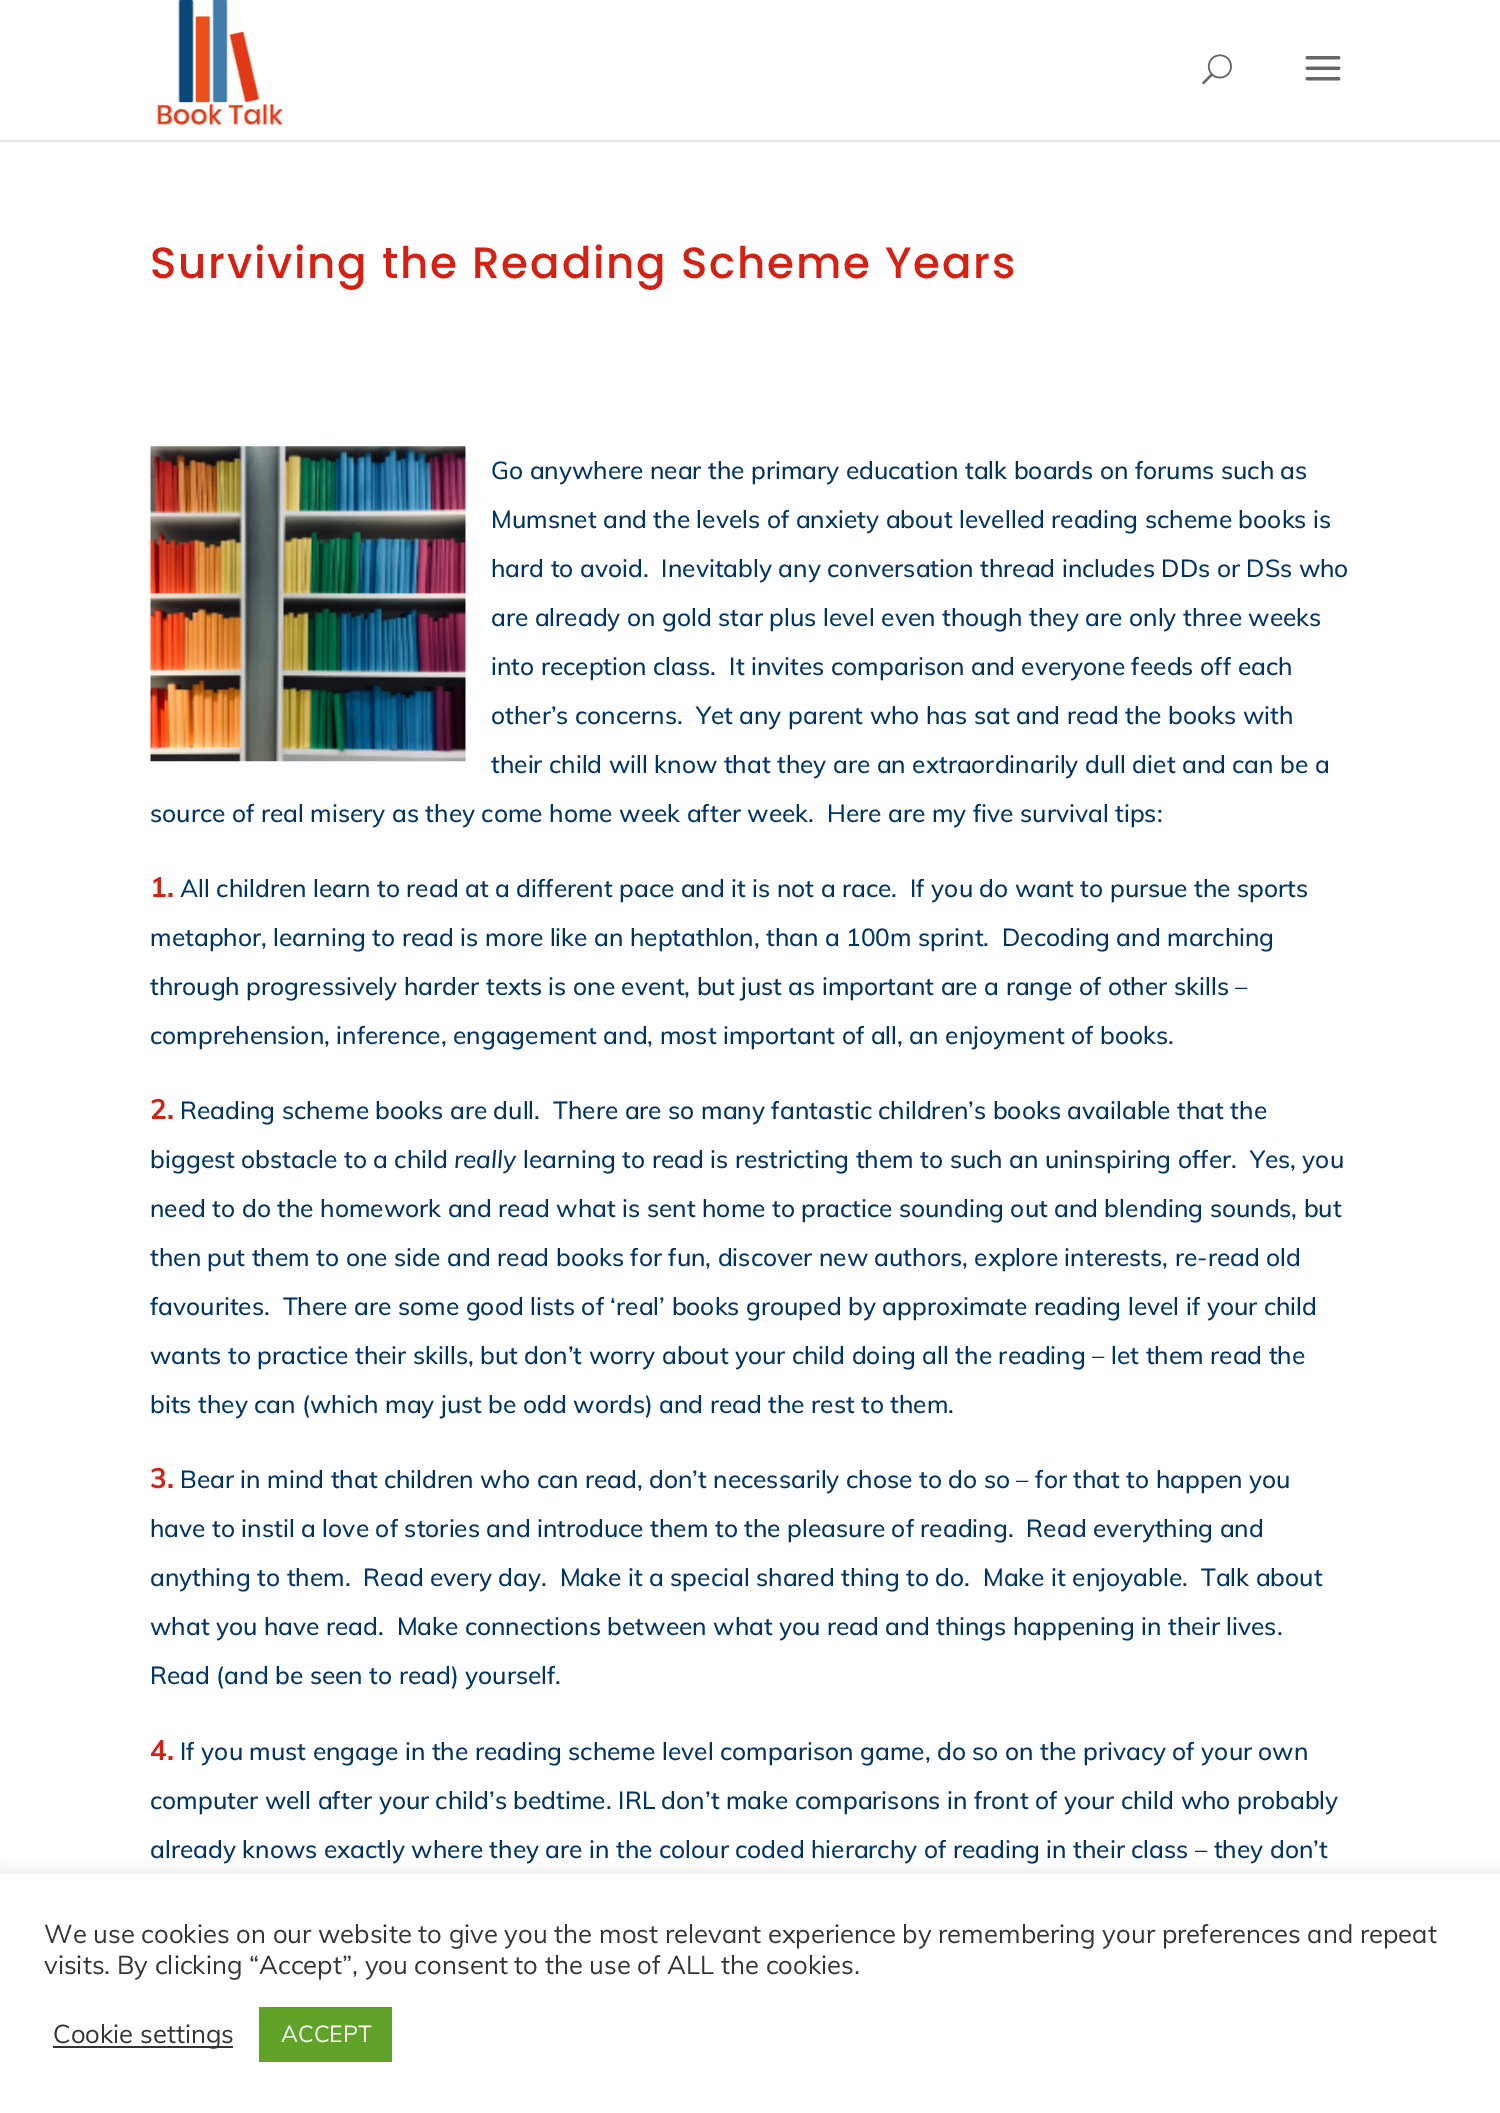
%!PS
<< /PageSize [1500 2113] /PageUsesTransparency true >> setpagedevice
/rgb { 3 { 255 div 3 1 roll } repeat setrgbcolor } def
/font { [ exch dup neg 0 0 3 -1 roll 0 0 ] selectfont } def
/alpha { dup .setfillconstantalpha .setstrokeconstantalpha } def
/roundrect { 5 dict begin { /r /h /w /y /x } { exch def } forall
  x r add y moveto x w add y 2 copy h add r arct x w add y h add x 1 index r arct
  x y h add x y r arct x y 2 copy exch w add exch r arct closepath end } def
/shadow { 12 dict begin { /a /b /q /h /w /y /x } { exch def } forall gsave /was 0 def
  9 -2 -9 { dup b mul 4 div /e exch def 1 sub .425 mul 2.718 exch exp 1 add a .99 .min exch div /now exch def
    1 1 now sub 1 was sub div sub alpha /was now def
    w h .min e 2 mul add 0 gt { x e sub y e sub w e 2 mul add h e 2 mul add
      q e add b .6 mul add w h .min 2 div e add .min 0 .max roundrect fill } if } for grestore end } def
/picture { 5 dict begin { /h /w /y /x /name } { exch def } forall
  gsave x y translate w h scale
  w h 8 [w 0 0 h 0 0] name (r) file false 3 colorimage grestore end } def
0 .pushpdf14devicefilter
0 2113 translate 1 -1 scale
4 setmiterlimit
255 255 255 rgb
0 0 1500 2113 rectfill
230 230 230 rgb
0 140 moveto 0 142 lineto 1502 142 lineto 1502 2 lineto 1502 140 lineto closepath fill
(img/1.rgb) 156 0 127 125 picture
(img/2.rgb) 1202 54 30 31 picture
(img/3.rgb) 1305 56 36 25 picture
(img/4.rgb) 150 446 316 316 picture
172 171 171 rgb
0 1873 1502 239 0 9 0.3 shadow
[
  [0 1874 1500 239 255 255 255]
  [53 2046 180 2 51 51 51]
  [259 2007 133 55 97 162 41]
] { aload pop rgb rectfill } forall
/Poppins-Medium 43.75 font
213 33 20 rgb
150 278 moveto 1.75 0 (Surviving the Reading Scheme Years) ashow
/Muli-Medium 24.5 font
0 51 102 rgb
[
  [(Go anywhere near the primary education talk boards on forums such as) 491 479]
  [(Mumsnet and the levels of anxiety about levelled reading scheme books is) 491 528]
  [(hard to avoid.  Inevitably any conversation thread includes DDs or DSs who) 491 577]
  [(are already on gold star plus level even though they are only three weeks) 491 626]
  [(into reception class.  It invites comparison and everyone feeds off each) 491 675]
  [(other’s concerns.  Yet any parent who has sat and read the books with) 491 724]
  [(their child will know that they are an extraordinarily dull diet and can be a) 491 773]
  [(source of real misery as they come home week after week.  Here are my five survival tips:) 150 822]
] { aload pop moveto show } forall
/Muli-Bold 28 font
213 33 20 rgb
150 897 moveto (1.) show
/Muli-Medium 24.5 font
0 51 102 rgb
[
  [(All children learn to read at a different pace and it is not a race.  If you do want to pursue the sports) 180 897]
  [(metaphor, learning to read is more like an heptathlon, than a 100m sprint.  Decoding and marching) 150 946]
  [(through progressively harder texts is one event, but just as important are a range of other skills –) 150 995]
  [(comprehension, inference, engagement and, most important of all, an enjoyment of books.) 150 1044]
] { aload pop moveto show } forall
/Muli-Bold 28 font
213 33 20 rgb
150 1119 moveto (2.) show
/Muli-Medium 24.5 font
0 51 102 rgb
180 1119 moveto (Reading scheme books are dull.  There are so many fantastic children’s books available that the) show
150 1168 moveto (biggest obstacle to a child) show
/Muli-MediumItalic 24.5 font
454 1168 moveto (really) show
/Muli-Medium 24.5 font
[
  [(learning to read is restricting them to such an uninspiring offer.  Yes, you) 523 1168]
  [(need to do the homework and read what is sent home to practice sounding out and blending sounds, but) 150 1217]
  [(then put them to one side and read books for fun, discover new authors, explore interests, re-read old) 150 1266]
  [(favourites.  There are some good lists of ‘real’ books grouped by approximate reading level if your child) 150 1315]
  [(wants to practice their skills, but don’t worry about your child doing all the reading – let them read the) 150 1364]
  [(bits they can \(which may just be odd words\) and read the rest to them.) 150 1413]
] { aload pop moveto show } forall
/Muli-Bold 28 font
213 33 20 rgb
150 1488 moveto (3.) show
/Muli-Medium 24.5 font
0 51 102 rgb
[
  [(Bear in mind that children who can read, don’t necessarily chose to do so – for that to happen you) 180 1488]
  [(have to instil a love of stories and introduce them to the pleasure of reading.  Read everything and) 150 1537]
  [(anything to them.  Read every day.  Make it a special shared thing to do.  Make it enjoyable.  Talk about) 150 1586]
  [(what you have read.  Make connections between what you read and things happening in their lives.) 150 1635]
  [(Read \(and be seen to read\) yourself.) 150 1684]
] { aload pop moveto show } forall
/Muli-Bold 28 font
213 33 20 rgb
150 1760 moveto (4.) show
/Muli-Medium 24.5 font
0 51 102 rgb
[
  [(If you must engage in the reading scheme level comparison game, do so on the privacy of your own) 180 1760]
  [(computer well after your child’s bedtime. IRL don’t make comparisons in front of your child who probably) 150 1809]
  [(already knows exactly where they are in the colour coded hierarchy of reading in their class – they don’t) 150 1858]
] { aload pop moveto show } forall
/Muli-Regular 25.67 font
51 51 51 rgb
[
  [(We use cookies on our website to give you the most relevant experience by remembering your preferences and repeat) 44 1943]
  [(visits. By clicking “Accept”, you consent to the use of ALL the cookies.) 44 1974]
  [(Cookie settings) 53 2043]
] { aload pop moveto show } forall
/Muli-Regular 23 font
255 255 255 rgb
281 2042 moveto (ACCEPT) show
.poppdf14devicefilter showpage
